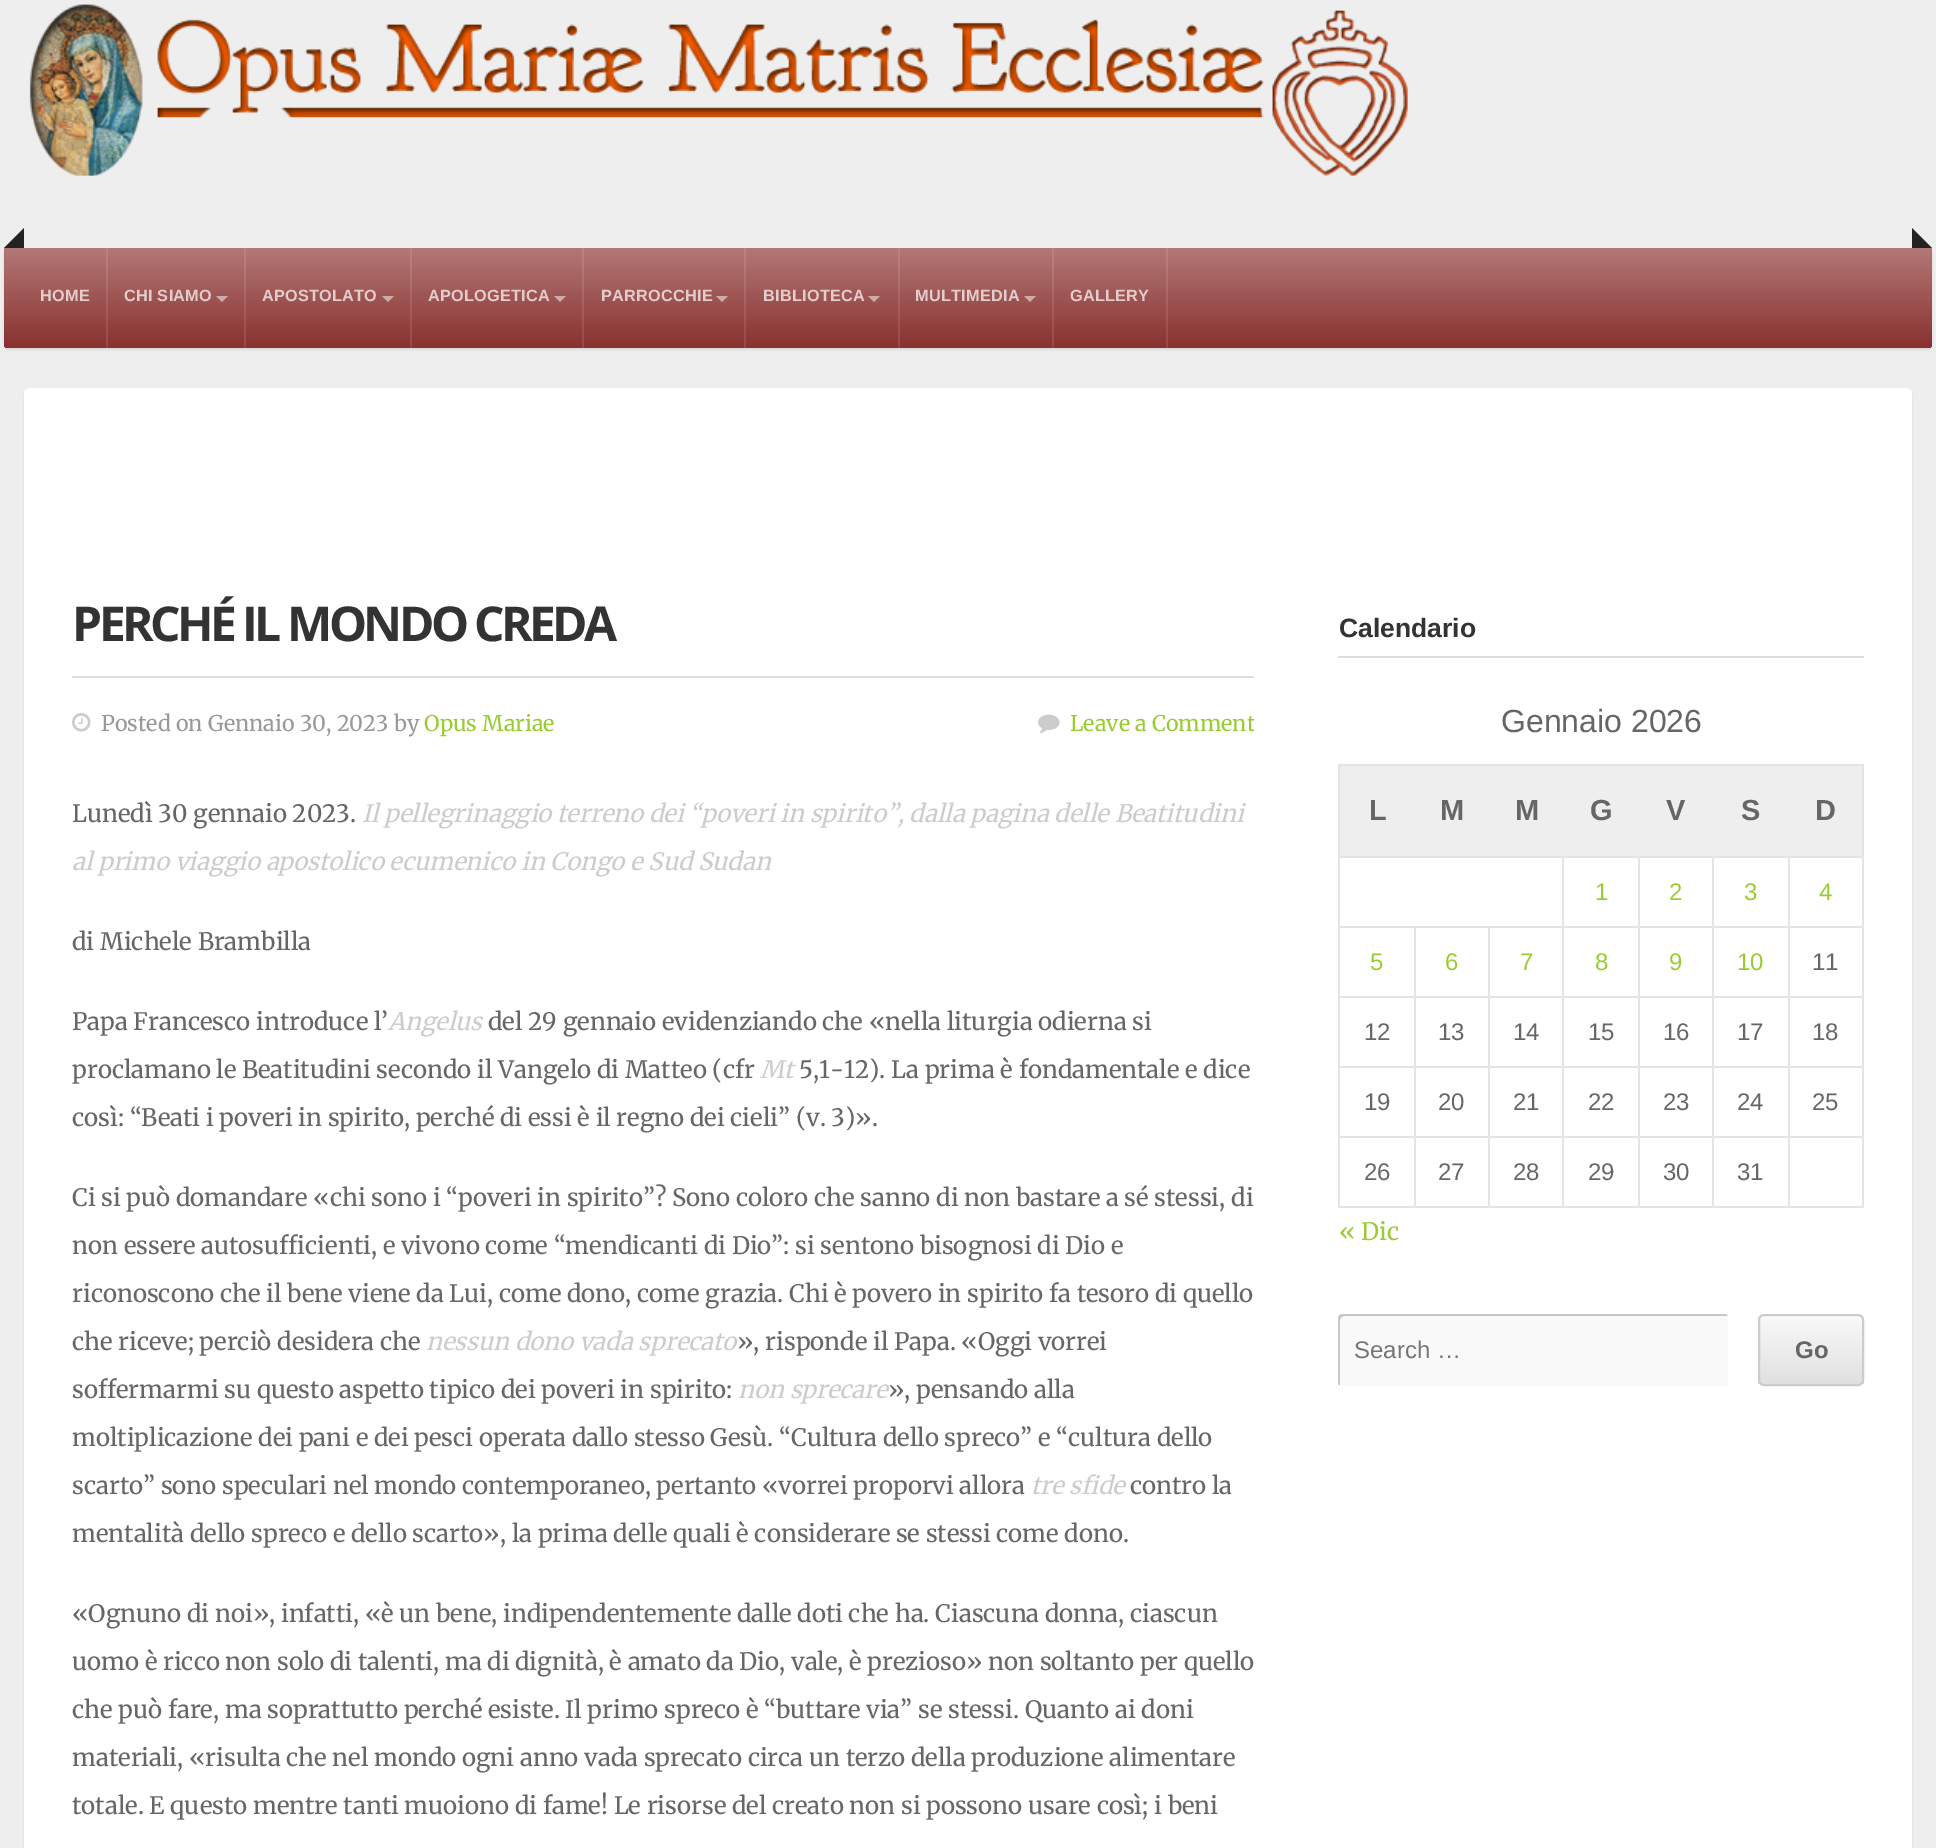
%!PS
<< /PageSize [1936 1848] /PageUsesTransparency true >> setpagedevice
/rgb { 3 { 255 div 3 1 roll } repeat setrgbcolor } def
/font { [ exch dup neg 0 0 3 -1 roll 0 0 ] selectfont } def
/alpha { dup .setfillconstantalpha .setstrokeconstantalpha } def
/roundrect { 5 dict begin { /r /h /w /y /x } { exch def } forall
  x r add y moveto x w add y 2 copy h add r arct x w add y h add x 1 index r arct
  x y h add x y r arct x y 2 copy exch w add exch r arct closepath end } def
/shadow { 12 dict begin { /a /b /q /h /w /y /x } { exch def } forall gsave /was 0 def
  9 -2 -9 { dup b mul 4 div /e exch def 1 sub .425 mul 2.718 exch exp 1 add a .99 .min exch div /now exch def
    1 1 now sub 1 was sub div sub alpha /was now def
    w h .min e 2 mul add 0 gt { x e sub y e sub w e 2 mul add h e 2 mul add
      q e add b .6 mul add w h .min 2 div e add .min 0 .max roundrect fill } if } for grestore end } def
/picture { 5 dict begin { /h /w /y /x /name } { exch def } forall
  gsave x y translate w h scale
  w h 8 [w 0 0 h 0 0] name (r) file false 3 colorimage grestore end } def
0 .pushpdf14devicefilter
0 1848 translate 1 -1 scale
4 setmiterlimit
238 238 238 rgb
0 0 1936 1848 rectfill
(img/1.rgb) 29 4 1379 172 picture
0 0 0 rgb
4 250 1928 100 4 1 0.08 shadow
gsave 4 248 moveto 1932 248 lineto 1932 344 lineto 1932 346 1930 348 1928 348 curveto 8 348 lineto 6 348 4 346 4 344 curveto closepath clip newpath
<< /ShadingType 2 /ColorSpace /DeviceRGB /Coords [968 248 968 348] /Extend [true true] /Function << /FunctionType 2 /Domain [0 1] /C0 [0.698 0.471 0.467] /C1 [0.537 0.192 0.184] /N 1 >> >> shfill grestore
gsave 1166 248 moveto 1168 248 lineto 1168 348 lineto 1166 348 lineto closepath clip newpath
<< /ShadingType 2 /ColorSpace /DeviceRGB /Coords [968 248 968 348] /Extend [true true] /Function << /FunctionType 2 /Domain [0 1] /C0 [0.729 0.525 0.522] /C1 [0.584 0.275 0.267] /N 1 >> >> shfill grestore
gsave 1052 248 moveto 1054 248 lineto 1054 348 lineto 1052 348 lineto closepath clip newpath
<< /ShadingType 2 /ColorSpace /DeviceRGB /Coords [968 248 968 348] /Extend [true true] /Function << /FunctionType 2 /Domain [0 1] /C0 [0.729 0.525 0.522] /C1 [0.584 0.275 0.267] /N 1 >> >> shfill grestore
gsave 898 248 moveto 900 248 lineto 900 348 lineto 898 348 lineto closepath clip newpath
<< /ShadingType 2 /ColorSpace /DeviceRGB /Coords [968 248 968 348] /Extend [true true] /Function << /FunctionType 2 /Domain [0 1] /C0 [0.729 0.525 0.522] /C1 [0.584 0.275 0.267] /N 1 >> >> shfill grestore
gsave 744 248 moveto 746 248 lineto 746 348 lineto 744 348 lineto closepath clip newpath
<< /ShadingType 2 /ColorSpace /DeviceRGB /Coords [968 248 968 348] /Extend [true true] /Function << /FunctionType 2 /Domain [0 1] /C0 [0.729 0.525 0.522] /C1 [0.584 0.275 0.267] /N 1 >> >> shfill grestore
gsave 582 248 moveto 584 248 lineto 584 348 lineto 582 348 lineto closepath clip newpath
<< /ShadingType 2 /ColorSpace /DeviceRGB /Coords [968 248 968 348] /Extend [true true] /Function << /FunctionType 2 /Domain [0 1] /C0 [0.729 0.525 0.522] /C1 [0.584 0.275 0.267] /N 1 >> >> shfill grestore
gsave 410 248 moveto 412 248 lineto 412 348 lineto 410 348 lineto closepath clip newpath
<< /ShadingType 2 /ColorSpace /DeviceRGB /Coords [968 248 968 348] /Extend [true true] /Function << /FunctionType 2 /Domain [0 1] /C0 [0.729 0.525 0.522] /C1 [0.584 0.275 0.267] /N 1 >> >> shfill grestore
gsave 244 248 moveto 246 248 lineto 246 348 lineto 244 348 lineto closepath clip newpath
<< /ShadingType 2 /ColorSpace /DeviceRGB /Coords [968 248 968 348] /Extend [true true] /Function << /FunctionType 2 /Domain [0 1] /C0 [0.729 0.525 0.522] /C1 [0.584 0.275 0.267] /N 1 >> >> shfill grestore
gsave 106 248 moveto 108 248 lineto 108 348 lineto 106 348 lineto closepath clip newpath
<< /ShadingType 2 /ColorSpace /DeviceRGB /Coords [968 248 968 348] /Extend [true true] /Function << /FunctionType 2 /Domain [0 1] /C0 [0.729 0.525 0.522] /C1 [0.584 0.275 0.267] /N 1 >> >> shfill grestore
34 34 34 rgb
24 228 moveto 24 248 lineto 4 248 lineto closepath fill
1912 248 moveto 1912 228 lineto 1932 248 lineto closepath fill
0.5 alpha
255 255 255 rgb
216 296 moveto 228 296 lineto 222 302 lineto closepath fill
382 296 moveto 394 296 lineto 388 302 lineto closepath fill
554 296 moveto 566 296 lineto 560 302 lineto closepath fill
716 296 moveto 728 296 lineto 722 302 lineto closepath fill
868 296 moveto 880 296 lineto 874 302 lineto closepath fill
1024 296 moveto 1036 296 lineto 1030 302 lineto closepath fill
1 alpha
0 0 0 rgb
24 390 1888 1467 6 1 0.08 shadow
255 255 255 rgb
24 388 1888 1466 6 roundrect fill
221 221 221 rgb
72 676 1182 2 rectfill
(img/2.rgb) 72 713 19 19 picture
(img/3.rgb) 1038 714 22 19 picture
[
  [1338 656 526 2 221 221 221]
  [1338 764 526 2 228 228 228]
  [1862 764 2 94 228 228 228]
  [1338 856 526 2 228 228 228]
  [1338 764 2 94 228 228 228]
  [1340 766 522 90 238 238 238]
  [1788 926 76 2 228 228 228]
  [1788 996 76 2 228 228 228]
  [1788 1066 76 2 228 228 228]
  [1788 1136 76 2 228 228 228]
  [1862 1136 2 72 228 228 228]
  [1788 1206 76 2 228 228 228]
  [1788 1136 2 72 228 228 228]
  [1712 1136 78 2 228 228 228]
  [1788 1066 2 72 228 228 228]
  [1712 1066 78 2 228 228 228]
  [1788 996 2 72 228 228 228]
  [1712 996 78 2 228 228 228]
  [1788 926 2 72 228 228 228]
  [1712 926 78 2 228 228 228]
  [1712 1206 78 2 228 228 228]
  [1712 1136 2 72 228 228 228]
  [1638 1136 76 2 228 228 228]
  [1712 1066 2 72 228 228 228]
  [1638 1066 76 2 228 228 228]
  [1712 996 2 72 228 228 228]
  [1638 996 76 2 228 228 228]
  [1712 926 2 72 228 228 228]
  [1638 926 76 2 228 228 228]
  [1638 1206 76 2 228 228 228]
  [1638 1136 2 72 228 228 228]
  [1562 1136 78 2 228 228 228]
  [1638 1066 2 72 228 228 228]
  [1562 1066 78 2 228 228 228]
  [1638 996 2 72 228 228 228]
  [1562 996 78 2 228 228 228]
  [1638 926 2 72 228 228 228]
  [1562 926 78 2 228 228 228]
  [1562 1206 78 2 228 228 228]
  [1562 1136 2 72 228 228 228]
  [1488 1136 76 2 228 228 228]
  [1562 1066 2 72 228 228 228]
  [1488 1066 76 2 228 228 228]
  [1562 996 2 72 228 228 228]
  [1488 996 76 2 228 228 228]
  [1562 926 2 72 228 228 228]
  [1488 926 76 2 228 228 228]
  [1562 856 2 72 228 228 228]
  [1638 856 2 72 228 228 228]
  [1712 856 2 72 228 228 228]
  [1788 856 2 72 228 228 228]
  [1488 1206 76 2 228 228 228]
  [1488 1136 2 72 228 228 228]
  [1414 1136 76 2 228 228 228]
  [1488 1066 2 72 228 228 228]
  [1414 1066 76 2 228 228 228]
  [1488 996 2 72 228 228 228]
  [1414 996 76 2 228 228 228]
  [1488 926 2 72 228 228 228]
  [1414 926 76 2 228 228 228]
  [1414 1206 76 2 228 228 228]
  [1414 1136 2 72 228 228 228]
  [1338 1136 78 2 228 228 228]
  [1414 1066 2 72 228 228 228]
  [1338 1066 78 2 228 228 228]
  [1414 996 2 72 228 228 228]
  [1338 996 78 2 228 228 228]
  [1414 926 2 72 228 228 228]
  [1338 926 78 2 228 228 228]
  [1338 1206 78 2 228 228 228]
  [1338 1136 2 72 228 228 228]
  [1338 1066 2 72 228 228 228]
  [1338 996 2 72 228 228 228]
  [1338 856 2 142 228 228 228]
  [1862 1066 2 72 228 228 228]
  [1862 996 2 72 228 228 228]
  [1862 856 2 142 228 228 228]
] { aload pop rgb rectfill } forall
249 249 249 rgb
1338 1314 390 72 4 roundrect fill
199 199 199 rgb
1344 1316 moveto 1726 1316 lineto 1728 1316 lineto 1727 1315 1726 1314 1724 1314 curveto 1342 1314 lineto 1340 1314 1338 1316 1338 1318 curveto 1338 1382 lineto 1338 1384 1339 1385 1340 1386 curveto 1340 1384 lineto 1340 1320 lineto 1340 1318 1342 1316 1344 1316 curveto closepath fill
gsave
1758 1314 106 72 6 roundrect clip newpath
gsave 1758 1316 moveto 1864 1316 lineto 1864 1384 lineto 1758 1384 lineto closepath clip newpath
<< /ShadingType 2 /ColorSpace /DeviceRGB /Coords [1811 1316 1811 1384] /Extend [true true] /Function << /FunctionType 2 /Domain [0 1] /C0 [0.976 0.976 0.976] /C1 [0.878 0.878 0.878] /N 1 >> >> shfill grestore
grestore
252 252 252 rgb
1764 1318 moveto 1858 1318 lineto 1860 1318 1862 1320 1862 1322 curveto 1862 1320 lineto 1862 1318 1860 1316 1858 1316 curveto 1764 1316 lineto 1762 1316 1760 1318 1760 1320 curveto 1760 1322 lineto 1760 1320 1762 1318 1764 1318 curveto closepath fill
204 204 204 rgb
2 setlinewidth
1759 1315 104 70 5 roundrect stroke
/LiberationSans-Bold 16.25 font
226 204 204 rgb
40 301 moveto 0.25 0 (HOME) ashow
124 301 moveto 0.25 0 (CHI SIAMO) ashow
262 301 moveto 0.25 0 (APOSTOLATO) ashow
428 301 moveto 0.25 0 (APOLOGETICA) ashow
601 301 moveto 0.25 0 (PARROCCHIE) ashow
763 301 moveto 0.25 0 (BIBLIOTECA) ashow
915 301 moveto 0.25 0 (MULTIMEDIA) ashow
1070 301 moveto 0.25 0 (GALLERY) ashow
/OpenSans-Bold 48 font
51 51 51 rgb
72 641 moveto -3.6 0 (PERCHÉ IL MONDO CREDA) ashow
/Merriweather-Regular 21.6 font
153 153 153 rgb
101 731 moveto (Posted on Gennaio 30, 2023 by) show
153 204 51 rgb
424 731 moveto (Opus Mariae) show
gsave
24 548 1230 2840 rectclip
1070 731 moveto (Leave a Comment) show
grestore
/Merriweather-Regular 24 font
102 102 102 rgb
72 822 moveto (Lunedì 30 gennaio 2023.) show
/Merriweather-Italic 24 font
204 204 204 rgb
362 822 moveto (Il pellegrinaggio terreno dei “poveri in spirito”, dalla pagina delle Beatitudini) show
72 870 moveto (al primo viaggio apostolico ecumenico in Congo e Sud Sudan) show
/Merriweather-Regular 24 font
102 102 102 rgb
72 950 moveto (di Michele Brambilla) show
72 1030 moveto (Papa Francesco introduce l’) show
/Merriweather-Italic 24 font
204 204 204 rgb
388 1030 moveto (Angelus) show
/Merriweather-Regular 24 font
102 102 102 rgb
488 1030 moveto (del 29 gennaio evidenziando che «nella liturgia odierna si) show
72 1078 moveto (proclamano le Beatitudini secondo il Vangelo di Matteo \(cfr) show
/Merriweather-Italic 24 font
204 204 204 rgb
760 1078 moveto (Mt) show
/Merriweather-Regular 24 font
102 102 102 rgb
[
  [(5,1-12\). La prima è fondamentale e dice) 799 1078]
  [(così: “Beati i poveri in spirito, perché di essi è il regno dei cieli” \(v. 3\)».) 72 1126]
  [(Ci si può domandare «chi sono i “poveri in spirito”? Sono coloro che sanno di non bastare a sé stessi, di) 72 1206]
  [(non essere autosufficienti, e vivono come “mendicanti di Dio”: si sentono bisognosi di Dio e) 72 1254]
  [(riconoscono che il bene viene da Lui, come dono, come grazia. Chi è povero in spirito fa tesoro di quello) 72 1302]
  [(che riceve; perciò desidera che) 72 1350]
] { aload pop moveto show } forall
/Merriweather-Italic 24 font
204 204 204 rgb
426 1350 moveto (nessun dono vada sprecato) show
/Merriweather-Regular 24 font
102 102 102 rgb
737 1350 moveto (», risponde il Papa. «Oggi vorrei) show
72 1398 moveto (soffermarmi su questo aspetto tipico dei poveri in spirito:) show
/Merriweather-Italic 24 font
204 204 204 rgb
738 1398 moveto (non sprecare) show
/Merriweather-Regular 24 font
102 102 102 rgb
[
  [(», pensando alla) 888 1398]
  [(moltiplicazione dei pani e dei pesci operata dallo stesso Gesù. “Cultura dello spreco” e “cultura dello) 72 1446]
  [(scarto” sono speculari nel mondo contemporaneo, pertanto «vorrei proporvi allora) 72 1494]
] { aload pop moveto show } forall
/Merriweather-Italic 24 font
204 204 204 rgb
1031 1494 moveto (tre sfide) show
/Merriweather-Regular 24 font
102 102 102 rgb
[
  [(contro la) 1130 1494]
  [(mentalità dello spreco e dello scarto», la prima delle quali è considerare se stessi come dono.) 72 1542]
  [(«Ognuno di noi», infatti, «è un bene, indipendentemente dalle doti che ha. Ciascuna donna, ciascun) 72 1622]
  [(uomo è ricco non solo di talenti, ma di dignità, è amato da Dio, vale, è prezioso» non soltanto per quello) 72 1670]
  [(che può fare, ma soprattutto perché esiste. Il primo spreco è “buttare via” se stessi. Quanto ai doni) 72 1718]
  [(materiali, «risulta che nel mondo ogni anno vada sprecato circa un terzo della produzione alimentare) 72 1766]
  [(totale. E questo mentre tanti muoiono di fame! Le risorse del creato non si possono usare così; i beni) 72 1814]
] { aload pop moveto show } forall
/LiberationSans-Bold 26.5 font
51 51 51 rgb
1339 637 moveto (Calendario) show
/LiberationSans-Regular 32 font
102 102 102 rgb
1501 732 moveto (Gennaio 2026) show
/LiberationSans-Bold 29 font
[
  [(L) 1369 820]
  [(M) 1440 820]
  [(M) 1515 820]
  [(G) 1590 820]
  [(V) 1666 820]
  [(S) 1741 820]
  [(D) 1815 820]
] { aload pop moveto show } forall
/LiberationSans-Regular 24 font
153 204 51 rgb
[
  [(1) 1595 900]
  [(2) 1669 900]
  [(3) 1744 900]
  [(4) 1819 900]
  [(5) 1370 970]
  [(6) 1445 970]
  [(7) 1520 970]
  [(8) 1595 970]
  [(9) 1669 970]
  [(10) 1737 970]
] { aload pop moveto show } forall
102 102 102 rgb
[
  [(11) 1812 970]
  [(12) 1364 1040]
  [(13) 1438 1040]
  [(14) 1513 1040]
  [(15) 1588 1040]
  [(16) 1663 1040]
  [(17) 1737 1040]
  [(18) 1812 1040]
  [(19) 1364 1110]
  [(20) 1438 1110]
  [(21) 1513 1110]
  [(22) 1588 1110]
  [(23) 1663 1110]
  [(24) 1737 1110]
  [(25) 1812 1110]
  [(26) 1364 1180]
  [(27) 1438 1180]
  [(28) 1513 1180]
  [(29) 1588 1180]
  [(30) 1663 1180]
  [(31) 1737 1180]
] { aload pop moveto show } forall
/Merriweather-Regular 24 font
153 204 51 rgb
1339 1240 moveto (« Dic) show
/LiberationSans-Regular 24 font
117 117 117 rgb
1354 1358 moveto (Search …) show
/LiberationSans-Bold 24 font
102 102 102 rgb
1795 1358 moveto (Go) show
.poppdf14devicefilter showpage
